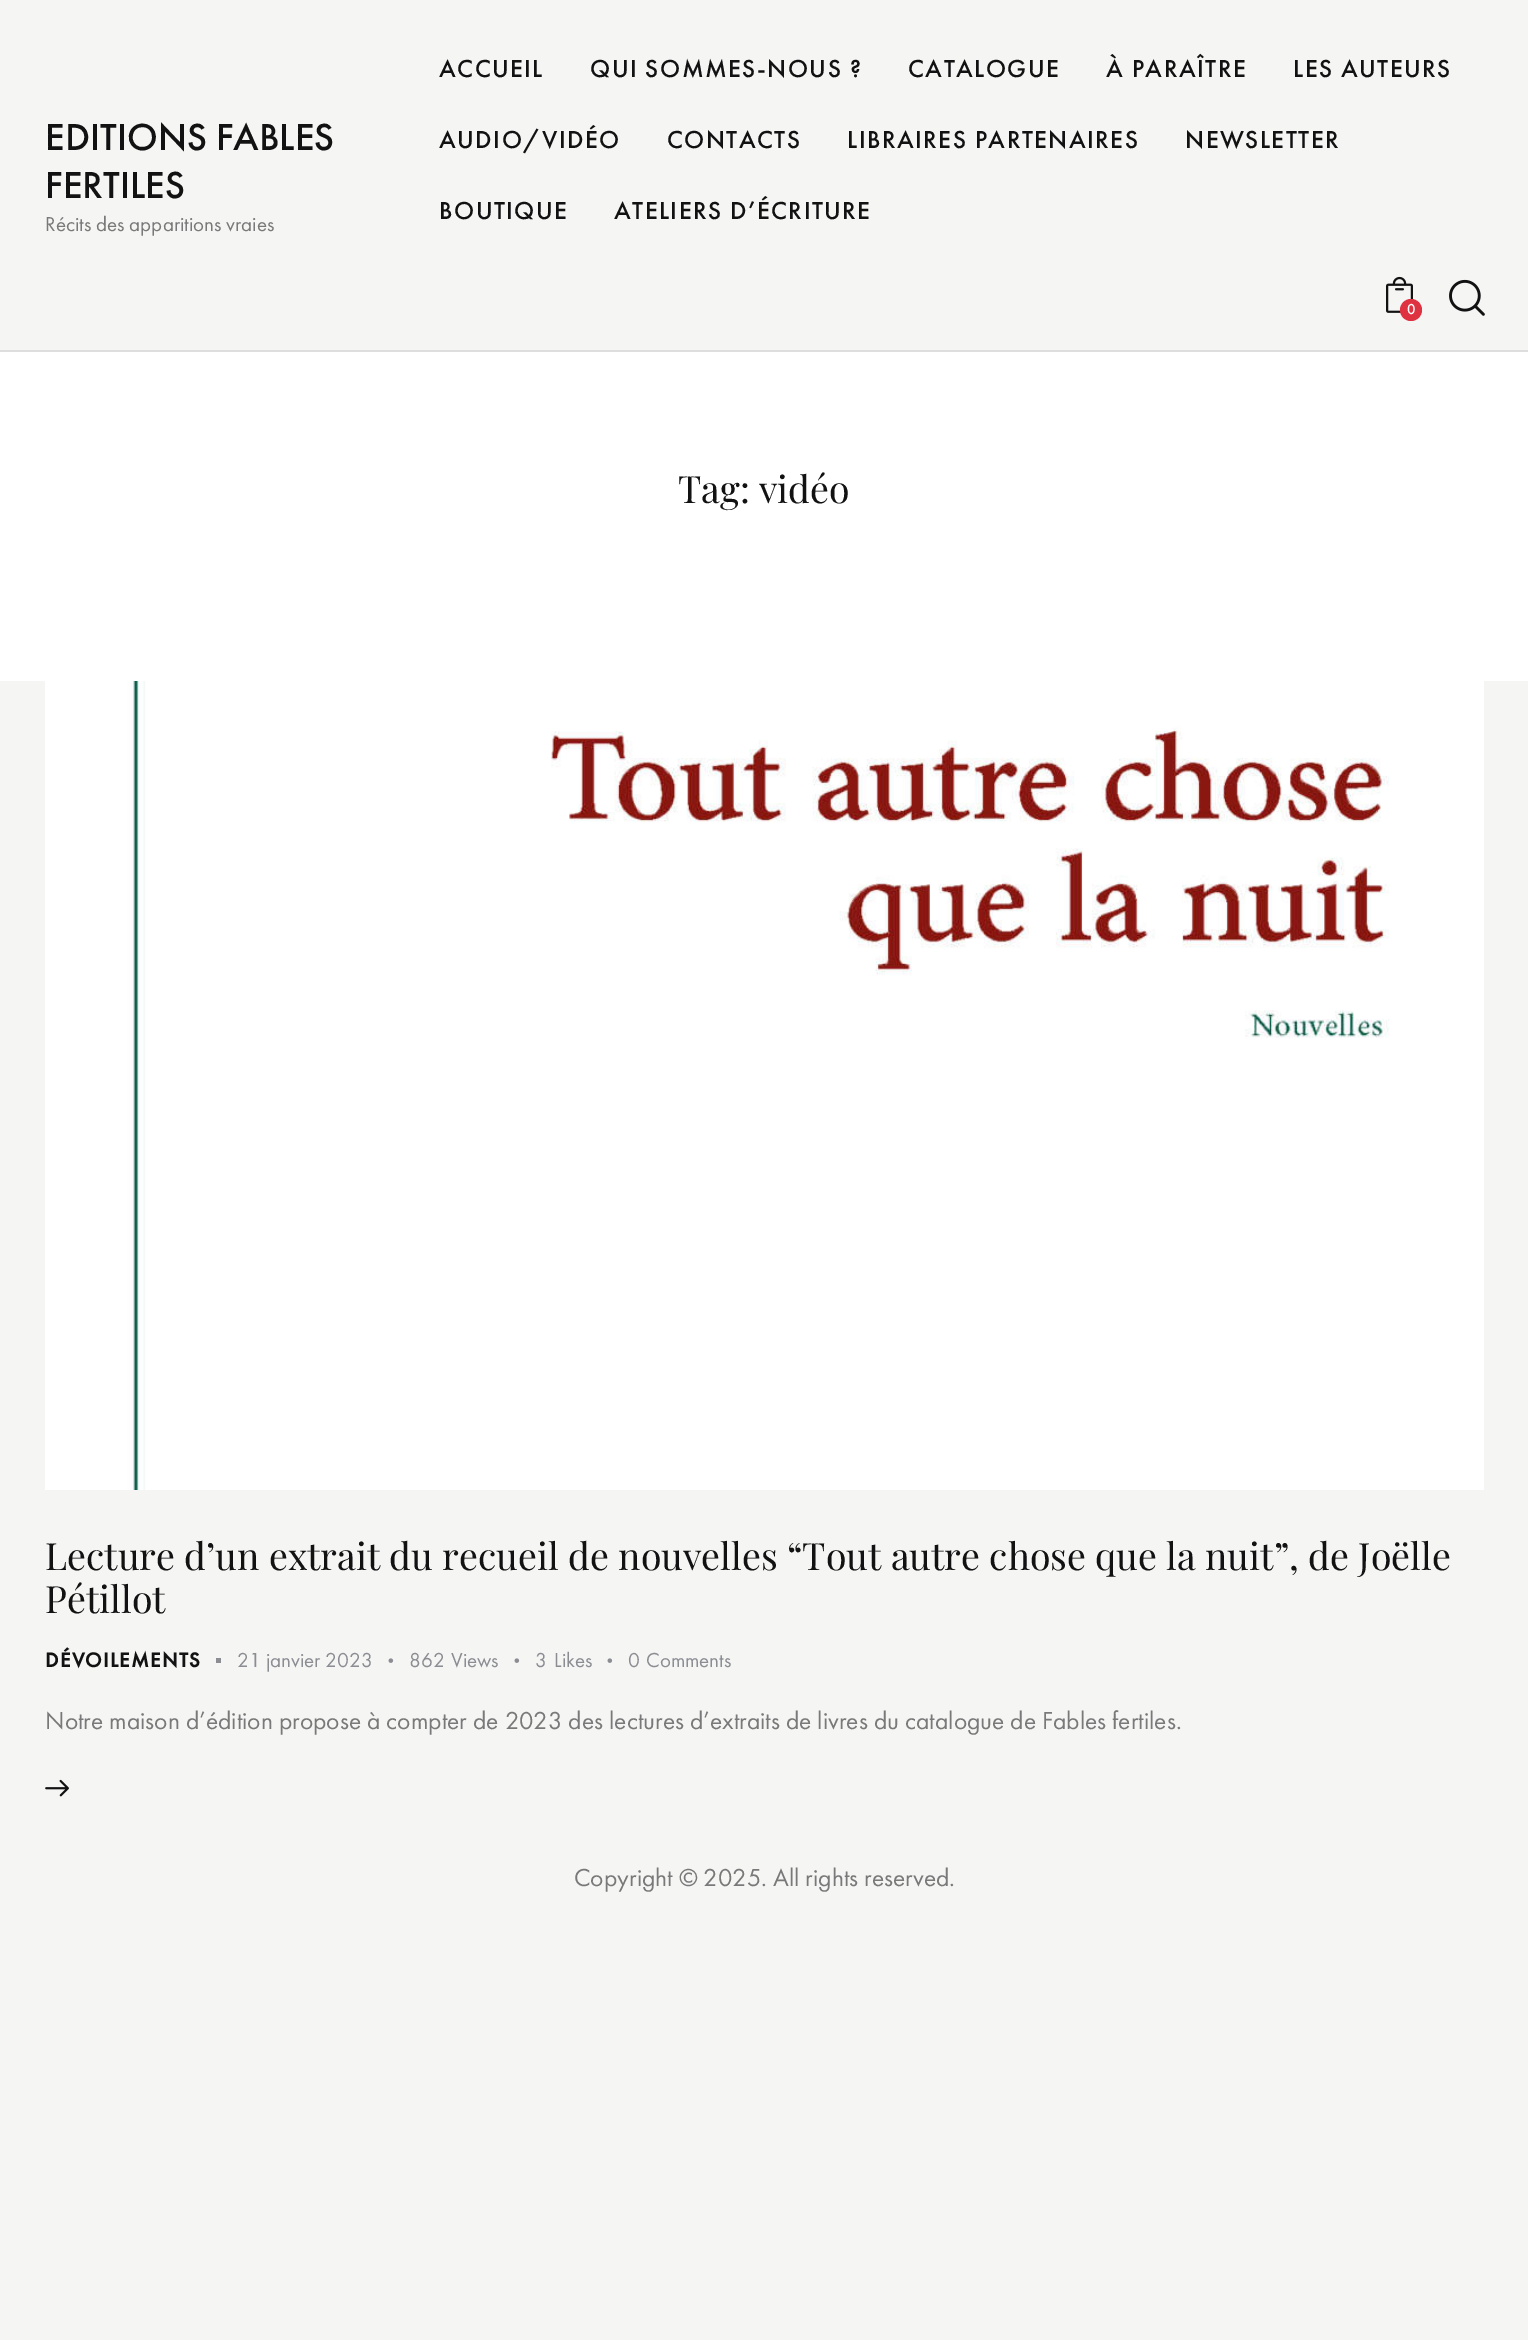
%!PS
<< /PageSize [1528 2340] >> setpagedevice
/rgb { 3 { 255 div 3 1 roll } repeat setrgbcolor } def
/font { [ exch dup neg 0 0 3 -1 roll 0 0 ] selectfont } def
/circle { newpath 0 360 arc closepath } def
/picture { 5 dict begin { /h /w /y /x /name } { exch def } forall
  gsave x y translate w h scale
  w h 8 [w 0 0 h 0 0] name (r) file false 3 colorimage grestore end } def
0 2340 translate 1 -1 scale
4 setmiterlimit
245 245 244 rgb
0 0 1528 2340 rectfill
222 222 222 rgb
0 350 1528 2 rectfill
(img/1.rgb) 1386 276 27 37 picture
222 50 65 rgb
1411 310 11 circle fill
(img/2.rgb) 1449 279 36 37 picture
255 255 255 rgb
0 352 1528 329 rectfill
(img/3.rgb) 45 681 1439 809 picture
140 141 147 rgb
216 1658 5 5 rectfill
(img/4.rgb) 388 1658 6 5 picture
(img/4.rgb) 514 1658 6 5 picture
(img/4.rgb) 607 1658 6 5 picture
(img/5.rgb) 45 1779 24 18 picture
/FuturaPT-Medium 39 font
18 18 18 rgb
45 150 moveto (EDITIONS FABLES) show
45 198 moveto (FERTILES) show
/FuturaPT-Regular 21 font
121 121 121 rgb
45 231 moveto (Récits des apparitions vraies) show
/FuturaPT-Medium 25.5 font
18 18 18 rgb
439 77 moveto 1.5 0 (ACCUEIL) ashow
590 77 moveto 1.5 0 (QUI SOMMES-NOUS ?) ashow
908 77 moveto 1.5 0 (CATALOGUE) ashow
1106 77 moveto 1.5 0 (À PARAÎTRE) ashow
1293 77 moveto 1.5 0 (LES AUTEURS) ashow
439 148 moveto 1.5 0 (AUDIO/VIDÉO) ashow
667 148 moveto 1.5 0 (CONTACTS) ashow
847 148 moveto 1.5 0 (LIBRAIRES PARTENAIRES) ashow
1185 148 moveto 1.5 0 (NEWSLETTER) ashow
439 219 moveto 1.5 0 (BOUTIQUE) ashow
614 219 moveto 1.5 0 (ATELIERS D’ÉCRITURE) ashow
/FuturaPT-Medium 15 font
255 255 255 rgb
1407 314 moveto (0) show
/PlayfairDisplay-Regular 37.5 font
18 18 18 rgb
[
  [(Tag: vidéo) 678 503]
  [(Lecture d’un extrait du recueil de nouvelles “Tout autre chose que la nuit”, de Joëlle) 45 1570]
  [(Pétillot) 45 1613]
] { aload pop moveto show } forall
/FuturaPT-Bold 21 font
45 1667 moveto 1.25 0 (DÉVOILEMENTS) ashow
/FuturaPT-Regular 21 font
140 141 147 rgb
[
  [(21 janvier 2023) 237 1667]
  [(862) 409 1667]
  [(Views) 451 1667]
  [(3) 535 1667]
  [(Likes) 554 1667]
  [(0) 628 1667]
  [(Comments) 646 1667]
] { aload pop moveto show } forall
/FuturaPT-Regular 25.5 font
121 121 121 rgb
45 1729 moveto (Notre maison d’édition propose à compter de 2023 des lectures d’extraits de livres du catalogue de Fables fertiles.) show
574 1886 moveto (Copyright © 2025. All rights reserved.) show
showpage
